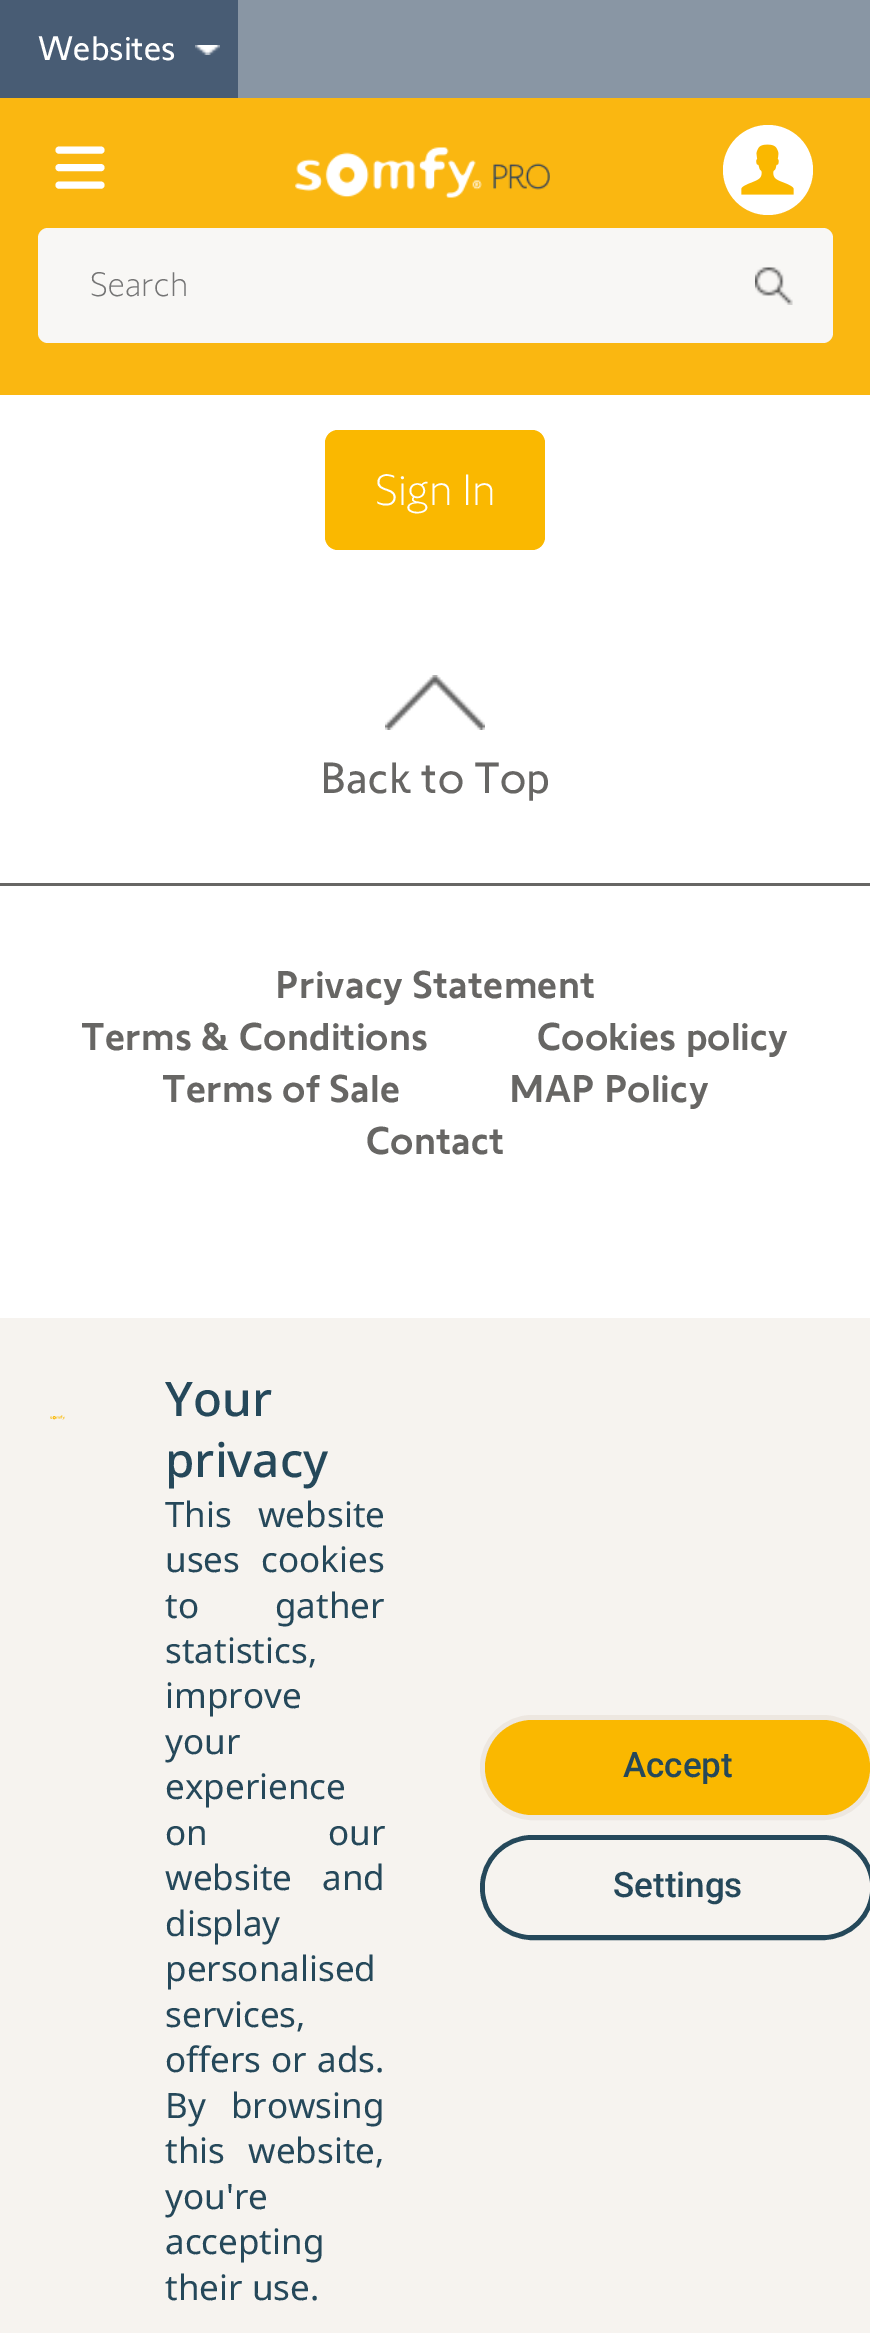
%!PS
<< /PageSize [870 2333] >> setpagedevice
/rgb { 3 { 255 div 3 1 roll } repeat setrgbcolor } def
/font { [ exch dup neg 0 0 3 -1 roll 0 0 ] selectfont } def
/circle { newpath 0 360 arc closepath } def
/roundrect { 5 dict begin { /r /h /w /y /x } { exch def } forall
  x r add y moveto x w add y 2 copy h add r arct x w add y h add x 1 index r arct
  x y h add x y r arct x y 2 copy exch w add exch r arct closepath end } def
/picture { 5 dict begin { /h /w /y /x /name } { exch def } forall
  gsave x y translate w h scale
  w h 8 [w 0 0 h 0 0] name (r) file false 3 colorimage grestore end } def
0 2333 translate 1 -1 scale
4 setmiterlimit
255 255 255 rgb
0 0 870 2333 rectfill
137 150 164 rgb
238 0 632 98 rectfill
72 92 116 rgb
0 0 238 98 rectfill
(img/1.rgb) 195 45 25 10 picture
250 183 17 rgb
0 98 870 297 rectfill
255 255 255 rgb
7 setlinewidth
1 setlinecap
1 setlinejoin
59 150 moveto 101 150 lineto 59 167.5 moveto 101 167.5 lineto 101 185 moveto 59 185 lineto stroke
(img/2.rgb) 295 147 255 51 picture
768 170 45 circle fill
(img/3.rgb) 741 144 53 51 picture
248 247 245 rgb
38 228 795 115 10 roundrect fill
(img/4.rgb) 755 267 38 38 picture
250 184 0 rgb
325 430 220 120 13 roundrect fill
(img/5.rgb) 385 675 100 55 picture
103 102 100 rgb
0 883 870 3 rectfill
246 243 239 rgb
0 1318 870 1015 rectfill
(img/6.rgb) 50 1415 15 5 picture
237 231 224 rgb
5 setlinewidth
0 setlinecap
0 setlinejoin
482.5 1717.5 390 100 50 roundrect stroke
250 184 0 rgb
485 1720 385 95 47.5 roundrect fill
37 72 90 rgb
482.5 1837.5 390 100 50 roundrect stroke
246 243 239 rgb
485 1840 385 95 47.5 roundrect fill
/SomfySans-Regular 35 font
255 255 255 rgb
38 60 moveto (Websites) show
/SomfySans-Light 35 font
117 117 117 rgb
90 296 moveto (Search) show
/SomfySans-Light 45 font
255 255 255 rgb
375 505 moveto (Sign In) show
/SomfySans-Regular 45 font
103 102 100 rgb
320 793 moveto (Back to Top) show
/SomfySans-Medium 40 font
[
  [(Privacy Statement) 275 998]
  [(Terms & Conditions) 81 1050]
  [(Cookies policy) 537 1050]
  [(Terms of Sale) 162 1102]
  [(MAP Policy) 509 1102]
  [(Contact) 366 1154]
] { aload pop moveto show } forall
/NotoSans-Medium 47.5 font
37 72 90 rgb
165 1416 moveto (Your) show
165 1477 moveto (privacy) show
/NotoSans-Regular 35 font
165 1527 moveto 17 0 32 (This website) widthshow
165 1572 moveto 12 0 32 (uses cookies) widthshow
165 1618 moveto 67 0 32 (to gather) widthshow
[
  [(statistics,) 165 1663]
  [(improve) 165 1708]
  [(your) 165 1754]
  [(experience) 165 1799]
] { aload pop moveto show } forall
165 1845 moveto 111 0 32 (on our) widthshow
165 1890 moveto 21 0 32 (website and) widthshow
[
  [(display) 165 1936]
  [(personalised) 165 1981]
  [(services,) 165 2027]
] { aload pop moveto show } forall
165 2072 moveto 1 0 32 (offers or ads.) widthshow
165 2118 moveto 16 0 32 (By browsing) widthshow
165 2163 moveto 14 0 32 (this website,) widthshow
[
  [(you're) 165 2209]
  [(accepting) 165 2254]
  [(their use.) 165 2300]
] { aload pop moveto show } forall
/Roboto-Medium 35 font
623 1777 moveto (Accept) show
613 1897 moveto (Settings) show
showpage
